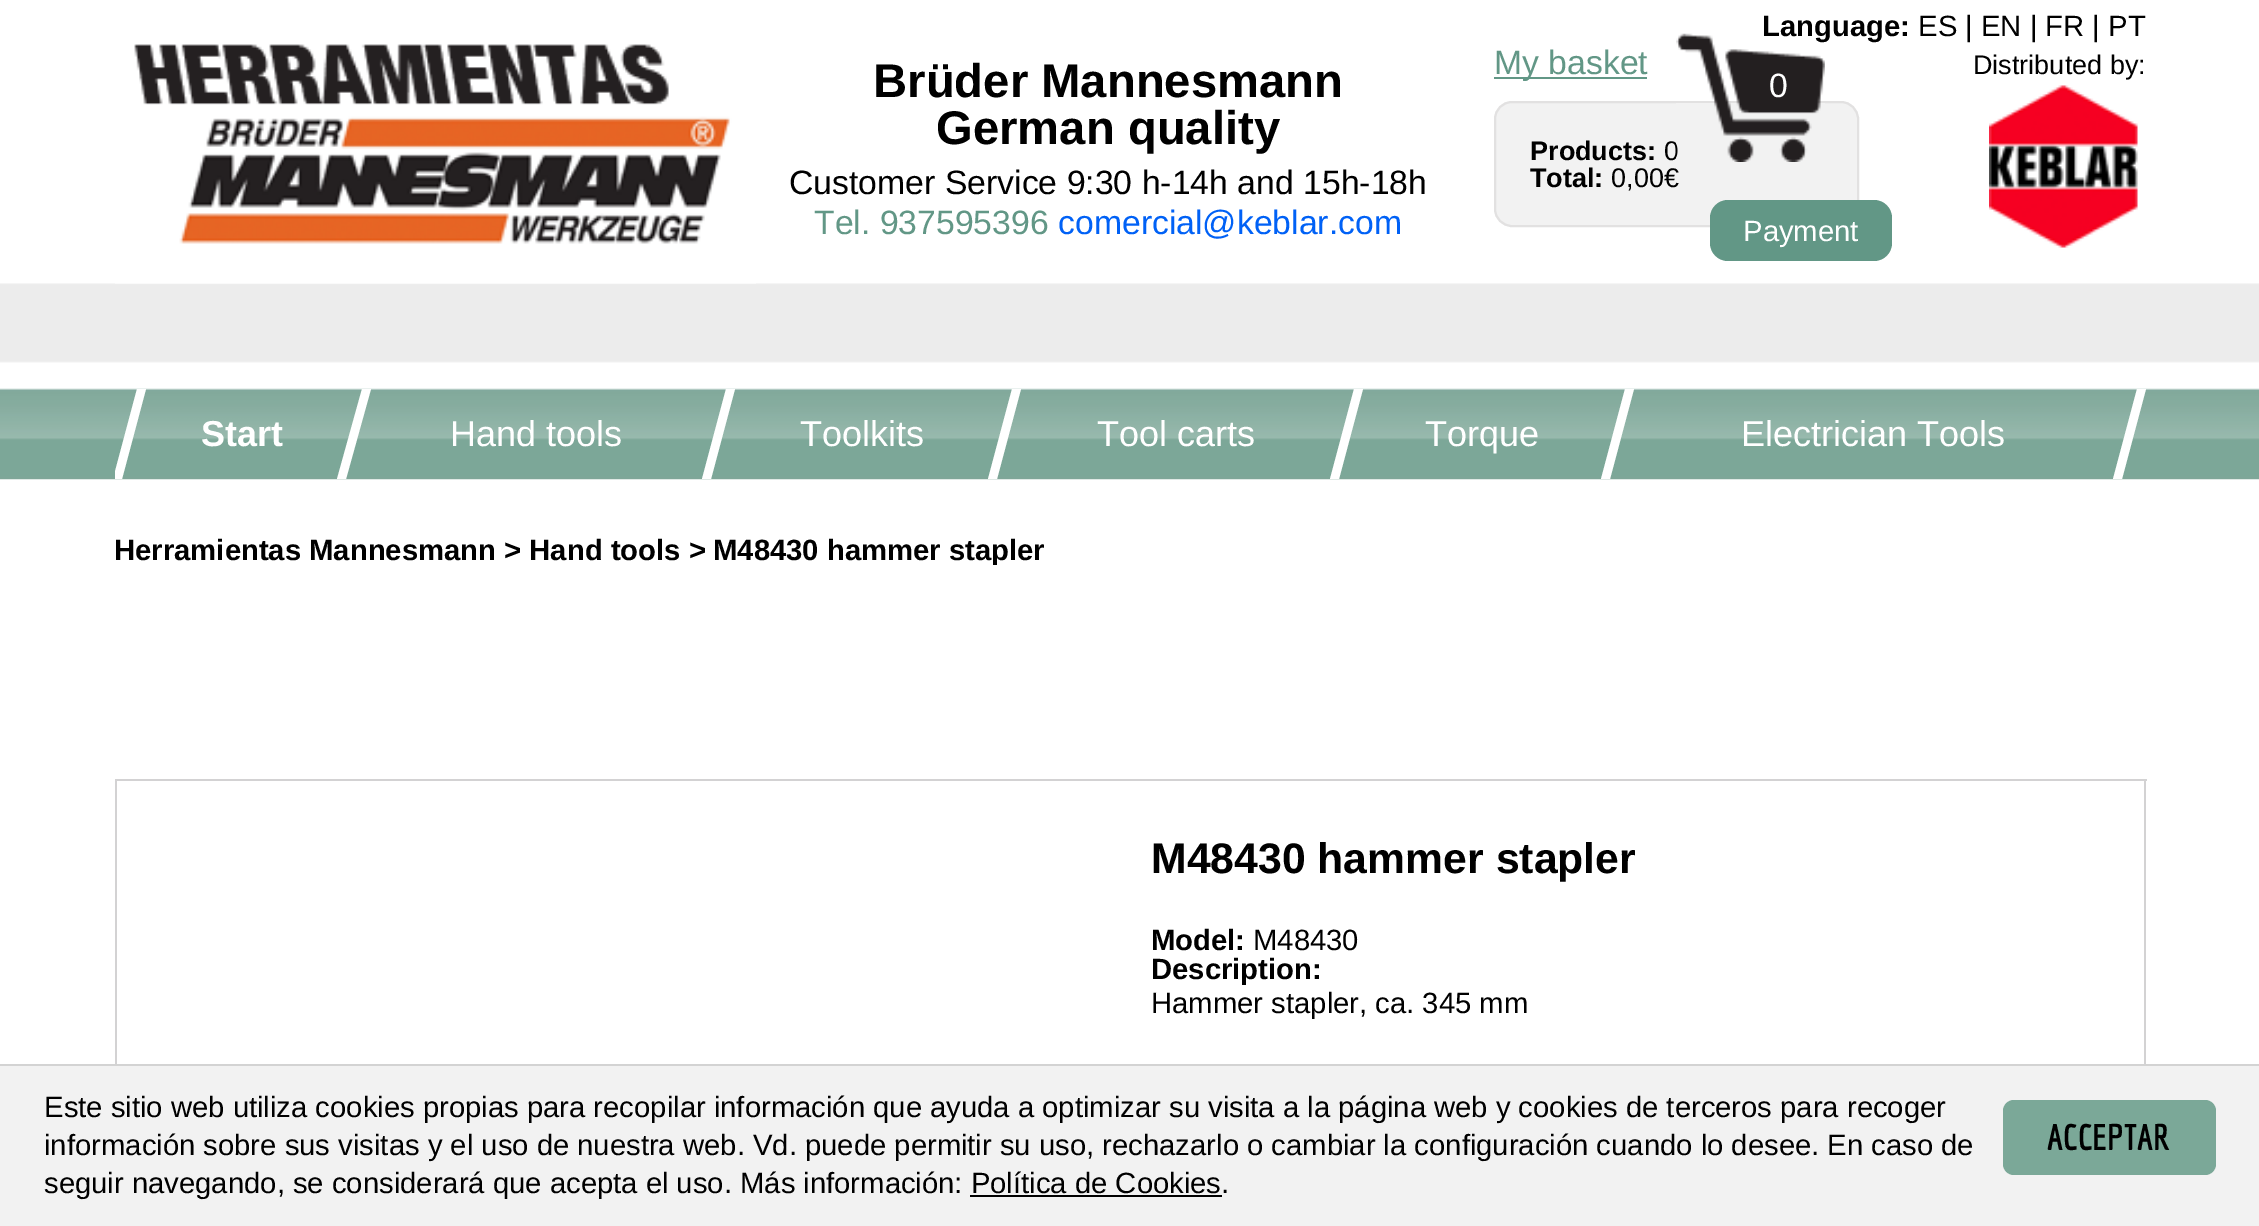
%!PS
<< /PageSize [2259 1226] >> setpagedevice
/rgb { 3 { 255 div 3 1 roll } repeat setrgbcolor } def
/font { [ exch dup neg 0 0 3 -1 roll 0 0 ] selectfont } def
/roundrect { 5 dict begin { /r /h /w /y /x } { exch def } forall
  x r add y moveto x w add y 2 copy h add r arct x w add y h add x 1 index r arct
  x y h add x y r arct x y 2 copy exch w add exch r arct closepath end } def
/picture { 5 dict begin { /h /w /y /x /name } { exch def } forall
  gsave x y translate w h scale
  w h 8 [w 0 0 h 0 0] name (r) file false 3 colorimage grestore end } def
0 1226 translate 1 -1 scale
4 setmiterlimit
255 255 255 rgb
0 0 2259 1226 rectfill
(img/1.rgb) 0 283 2259 197 picture
(img/2.rgb) 115 44 641 240 picture
98 151 134 rgb
1494 77 153 2 rectfill
242 242 242 rgb
1495 102 363 124 17 roundrect gsave fill grestore
226 225 225 rgb
2 setlinewidth
stroke
98 151 134 rgb
1710 200 182 61 18 roundrect fill
(img/4.rgb) 1989 85 149 163 picture
255 255 255 rgb
362 389 moveto 371 389 lineto 346 479 lineto 337 479 lineto closepath fill
gsave
115 389 2032 176 rectclip
137 389 moveto 146 389 lineto 122 479 lineto 113 479 lineto closepath fill
grestore
726 389 moveto 735 389 lineto 711 479 lineto 702 479 lineto closepath fill
1012 389 moveto 1021 389 lineto 997 479 lineto 988 479 lineto closepath fill
1354 389 moveto 1363 389 lineto 1339 479 lineto 1330 479 lineto closepath fill
1625 389 moveto 1634 389 lineto 1610 479 lineto 1601 479 lineto closepath fill
2137 389 moveto 2146 389 lineto 2122 479 lineto 2113 479 lineto closepath fill
[
  [115 779 2032 2 211 210 211]
  [2144 779 2 285 211 210 211]
  [115 779 2 285 211 210 211]
  [0 1066 2259 160 242 242 242]
  [0 1064 2259 2 211 211 211]
] { aload pop rgb rectfill } forall
123 168 152 rgb
2003 1100 213 75 11 roundrect fill
0 0 0 rgb
970 1195 252 2 rectfill
/LiberationSans-Bold 47.25 font
873 97 moveto (Brüder Mannesmann) show
936 144 moveto (German quality) show
/LiberationSans-Regular 33.75 font
789 194 moveto (Customer Service 9:30 h-14h and 15h-18h) show
98 151 134 rgb
814 234 moveto (Tel. 937595396) show
0 97 246 rgb
1058 234 moveto (comercial@keblar.com) show
98 151 134 rgb
1494 74 moveto (My basket) show
/LiberationSans-Bold 27 font
0 0 0 rgb
1530 160 moveto (Products:) show
/LiberationSans-Regular 27 font
1664 160 moveto (0) show
(img/3.rgb) 1676 33 149 129 picture
/LiberationSans-Regular 33.75 font
255 255 255 rgb
1769 97 moveto (0) show
/LiberationSans-Bold 27 font
0 0 0 rgb
1530 187 moveto (Total:) show
/LiberationSans-Regular 27 font
1611 187 moveto (0,00€) show
/LiberationSans-Regular 29.25 font
255 255 255 rgb
1743 241 moveto (Payment) show
/LiberationSans-Bold 29.25 font
0 0 0 rgb
1762 36 moveto (Language:) show
/LiberationSans-Regular 29.25 font
1918 36 moveto (ES | EN | FR | PT) show
/LiberationSans-Regular 27 font
1973 74 moveto (Distributed by:) show
/LiberationSans-Bold 36 font
255 255 255 rgb
201 446 moveto (Start) show
/LiberationSans-Regular 36 font
[
  [(Hand tools) 450 446]
  [(Toolkits) 800 446]
  [(Tool carts) 1097 446]
  [(Torque) 1425 446]
  [(Electrician Tools) 1741 446]
] { aload pop moveto show } forall
/LiberationSans-Bold 29.25 font
0 0 0 rgb
114 560 moveto (Herramientas Mannesmann > Hand tools >) show
gsave
115 389 2032 176 rectclip
713 560 moveto (M48430 hammer stapler) show
grestore
/LiberationSans-Bold 42.75 font
1151 873 moveto (M48430 hammer stapler) show
/LiberationSans-Bold 29.25 font
1151 950 moveto (Model:) show
/LiberationSans-Regular 29.25 font
1253 950 moveto (M48430) show
/LiberationSans-Bold 29.25 font
1151 979 moveto (Description:) show
/LiberationSans-Regular 29.25 font
[
  [(Hammer stapler, ca. 345 mm) 1151 1013]
  [(Este sitio web utiliza cookies propias para recopilar información que ayuda a optimizar su visita a la página web y cookies de terceros para recoger) 44 1117]
  [(información sobre sus visitas y el uso de nuestra web. Vd. puede permitir su uso, rechazarlo o cambiar la configuración cuando lo desee. En caso de) 44 1155]
] { aload pop moveto show } forall
/Economica-Bold 36 font
2047 1150 moveto (ACCEPTAR) show
/LiberationSans-Regular 29.25 font
44 1193 moveto (seguir navegando, se considerará que acepta el uso. Más información: Política de Cookies.) show
showpage
